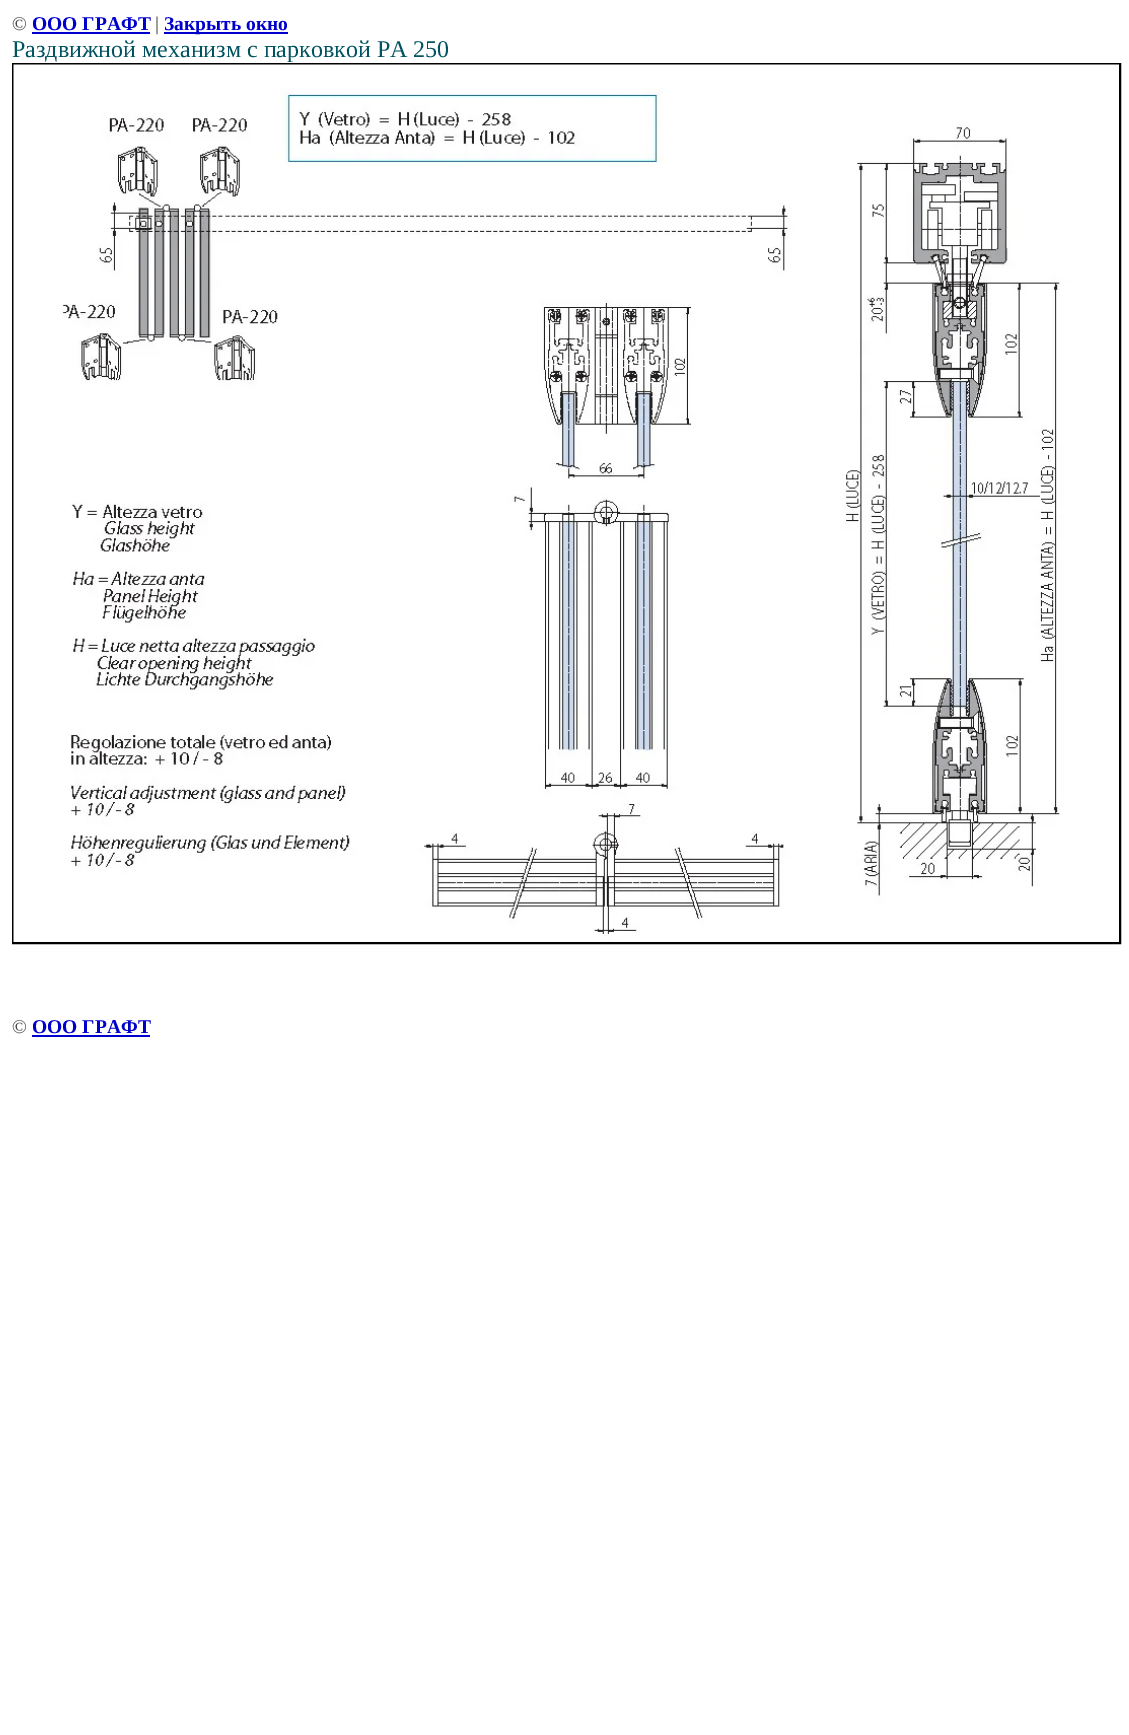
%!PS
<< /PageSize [1129 1735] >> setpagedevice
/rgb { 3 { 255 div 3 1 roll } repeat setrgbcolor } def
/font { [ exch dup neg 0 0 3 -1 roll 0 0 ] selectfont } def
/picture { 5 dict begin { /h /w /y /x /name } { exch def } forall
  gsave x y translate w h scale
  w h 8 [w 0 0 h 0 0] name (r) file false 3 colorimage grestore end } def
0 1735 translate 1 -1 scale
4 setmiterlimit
255 255 255 rgb
0 0 1129 1735 rectfill
0 0 204 rgb
32 32 118 2 rectfill
164 32 124 2 rectfill
0 0 0 rgb
2 setlinewidth
13 64 1107 879 rectstroke
(img/1.rgb) 13 64 1106 878 picture
0 0 204 rgb
32 1035 118 2 rectfill
/LiberationSerif-Regular 19.5 font
74 74 73 rgb
12 30 moveto (©) show
/LiberationSerif-Bold 19.5 font
0 0 204 rgb
32 30 moveto (ООО ГРАФТ) show
/LiberationSerif-Regular 19.5 font
74 74 73 rgb
155 30 moveto (|) show
/LiberationSerif-Bold 19.5 font
0 0 204 rgb
164 30 moveto (Закрыть окно) show
/LiberationSerif-Regular 24 font
0 83 96 rgb
12 57 moveto (Раздвижной механизм с парковкой PA 250) show
/LiberationSerif-Regular 19.5 font
74 74 73 rgb
12 1033 moveto (©) show
/LiberationSerif-Bold 19.5 font
0 0 204 rgb
32 1033 moveto (ООО ГРАФТ) show
showpage
